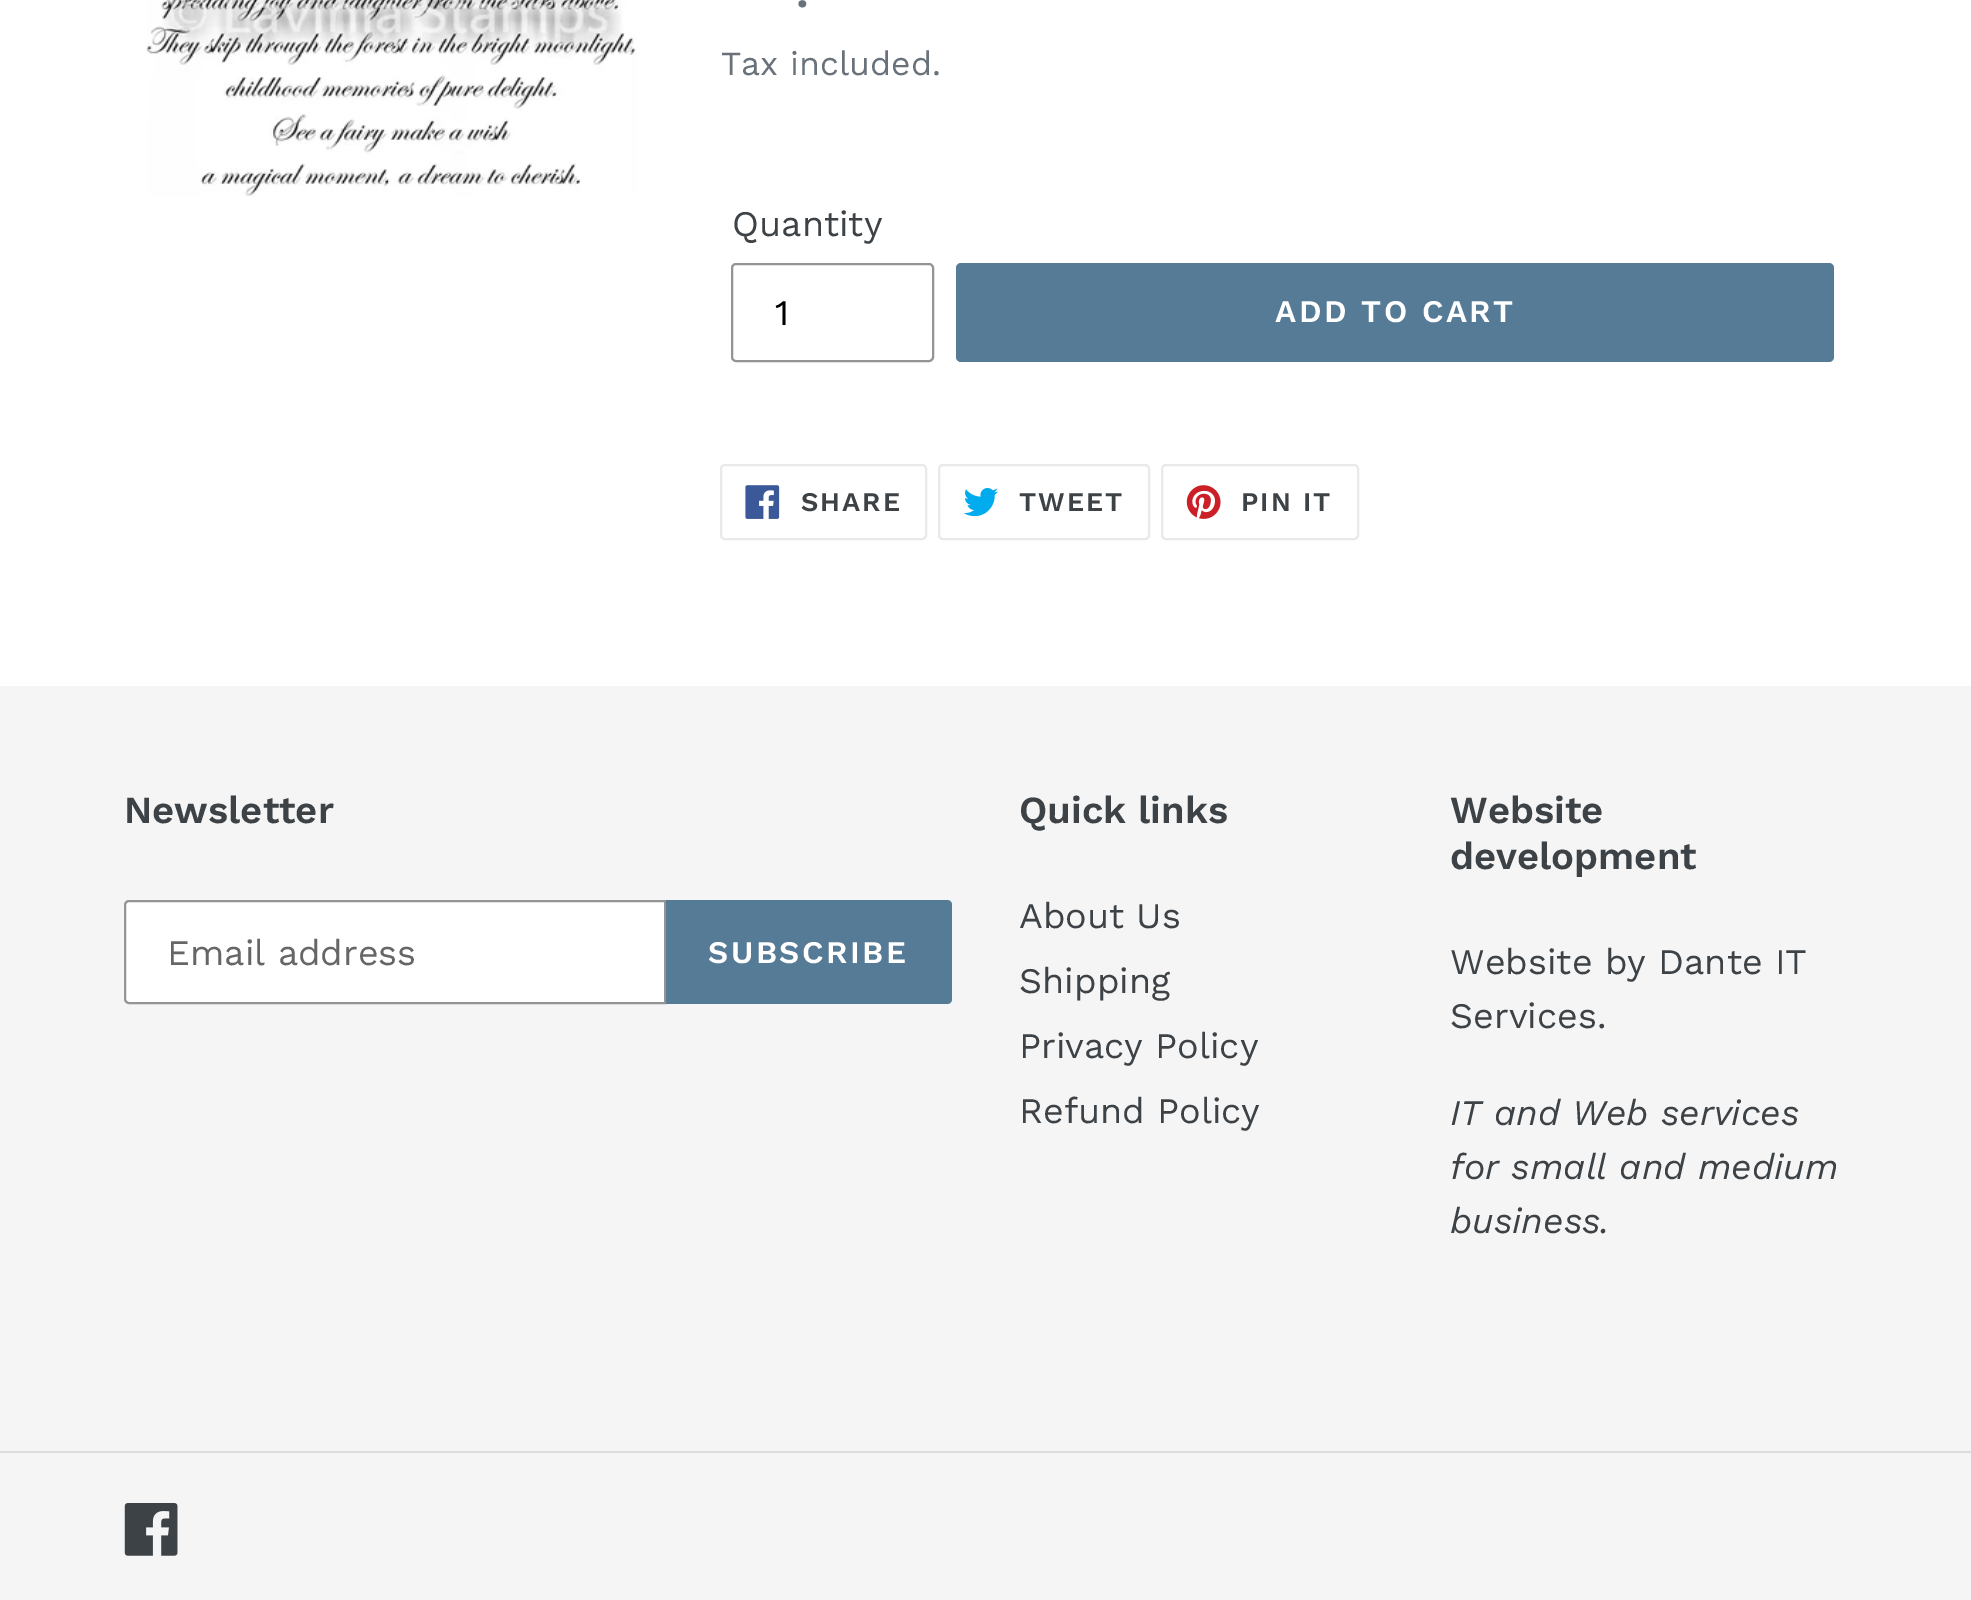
%!PS
<< /PageSize [1971 1600] >> setpagedevice
/rgb { 3 { 255 div 3 1 roll } repeat setrgbcolor } def
/font { [ exch dup neg 0 0 3 -1 roll 0 0 ] selectfont } def
/roundrect { 5 dict begin { /r /h /w /y /x } { exch def } forall
  x r add y moveto x w add y 2 copy h add r arct x w add y h add x 1 index r arct
  x y h add x y r arct x y 2 copy exch w add exch r arct closepath end } def
/picture { 5 dict begin { /h /w /y /x /name } { exch def } forall
  gsave x y translate w h scale
  w h 8 [w 0 0 h 0 0] name (r) file false 3 colorimage grestore end } def
0 1600 translate 1 -1 scale
4 setmiterlimit
255 255 255 rgb
0 0 1971 1600 rectfill
(img/1.rgb) 146 0 491 197 picture
148 148 148 rgb
2 setlinewidth
732 264 201 97 4 roundrect stroke
85 123 151 rgb
956 263 878 99 5 roundrect fill
232 233 235 rgb
721 465 205 74 4 roundrect stroke
(img/2.rgb) 745 485 35 34 picture
939 465 210 74 4 roundrect stroke
(img/3.rgb) 963 488 35 29 picture
1162 465 196 74 4 roundrect stroke
(img/4.rgb) 1186 485 35 34 picture
245 245 245 rgb
0 686 1971 914 rectfill
255 255 255 rgb
129 901 moveto 665 901 lineto 665 1003 lineto 129 1003 lineto 127 1003 125 1001 125 999 curveto 125 905 lineto 125 903 127 901 129 901 curveto closepath gsave fill grestore
148 148 148 rgb
stroke
85 123 151 rgb
666 900 moveto 947 900 lineto 950 900 952 902 952 905 curveto 952 999 lineto 952 1002 950 1004 947 1004 curveto 666 1004 lineto closepath fill
220 220 220 rgb
0 1451 1971 2 rectfill
(img/5.rgb) 124 1503 54 53 picture
/WorkSans-SemiBold 45 font
105 114 123 rgb
796 7 moveto (.) show
/WorkSans-Regular 33.75 font
721 75 moveto (Tax included.) show
/WorkSans-Regular 36 font
61 66 70 rgb
732 236 moveto (Quantity) show
0 0 0 rgb
775 325 moveto (1) show
/WorkSans-SemiBold 31.5 font
255 255 255 rgb
1275 322 moveto 2.5 0 (ADD TO CART) ashow
/WorkSans-SemiBold 27 font
61 66 70 rgb
801 511 moveto 2 0 (SHARE) ashow
1019 511 moveto 2 0 (TWEET) ashow
1241 511 moveto 2 0 (PIN IT) ashow
/WorkSans-SemiBold 38.25 font
124 823 moveto (Newsletter) show
/WorkSans-Regular 36 font
102 102 102 rgb
167 965 moveto (Email address) show
/WorkSans-SemiBold 31.5 font
255 255 255 rgb
708 963 moveto 2.5 0 (SUBSCRIBE) ashow
/WorkSans-SemiBold 38.25 font
61 66 70 rgb
1019 823 moveto (Quick links) show
/WorkSans-Regular 36 font
[
  [(About Us) 1019 928]
  [(Shipping) 1019 993]
  [(Privacy Policy) 1019 1058]
  [(Refund Policy) 1019 1123]
] { aload pop moveto show } forall
/WorkSans-SemiBold 38.25 font
1450 823 moveto (Website) show
1450 869 moveto (development) show
/WorkSans-Regular 36 font
1450 974 moveto (Website by Dante IT) show
1450 1028 moveto (Services.) show
/WorkSans-Italic 36 font
[
  [(IT and Web services) 1450 1125]
  [(for small and medium) 1450 1179]
  [(business.) 1450 1233]
] { aload pop moveto show } forall
showpage
